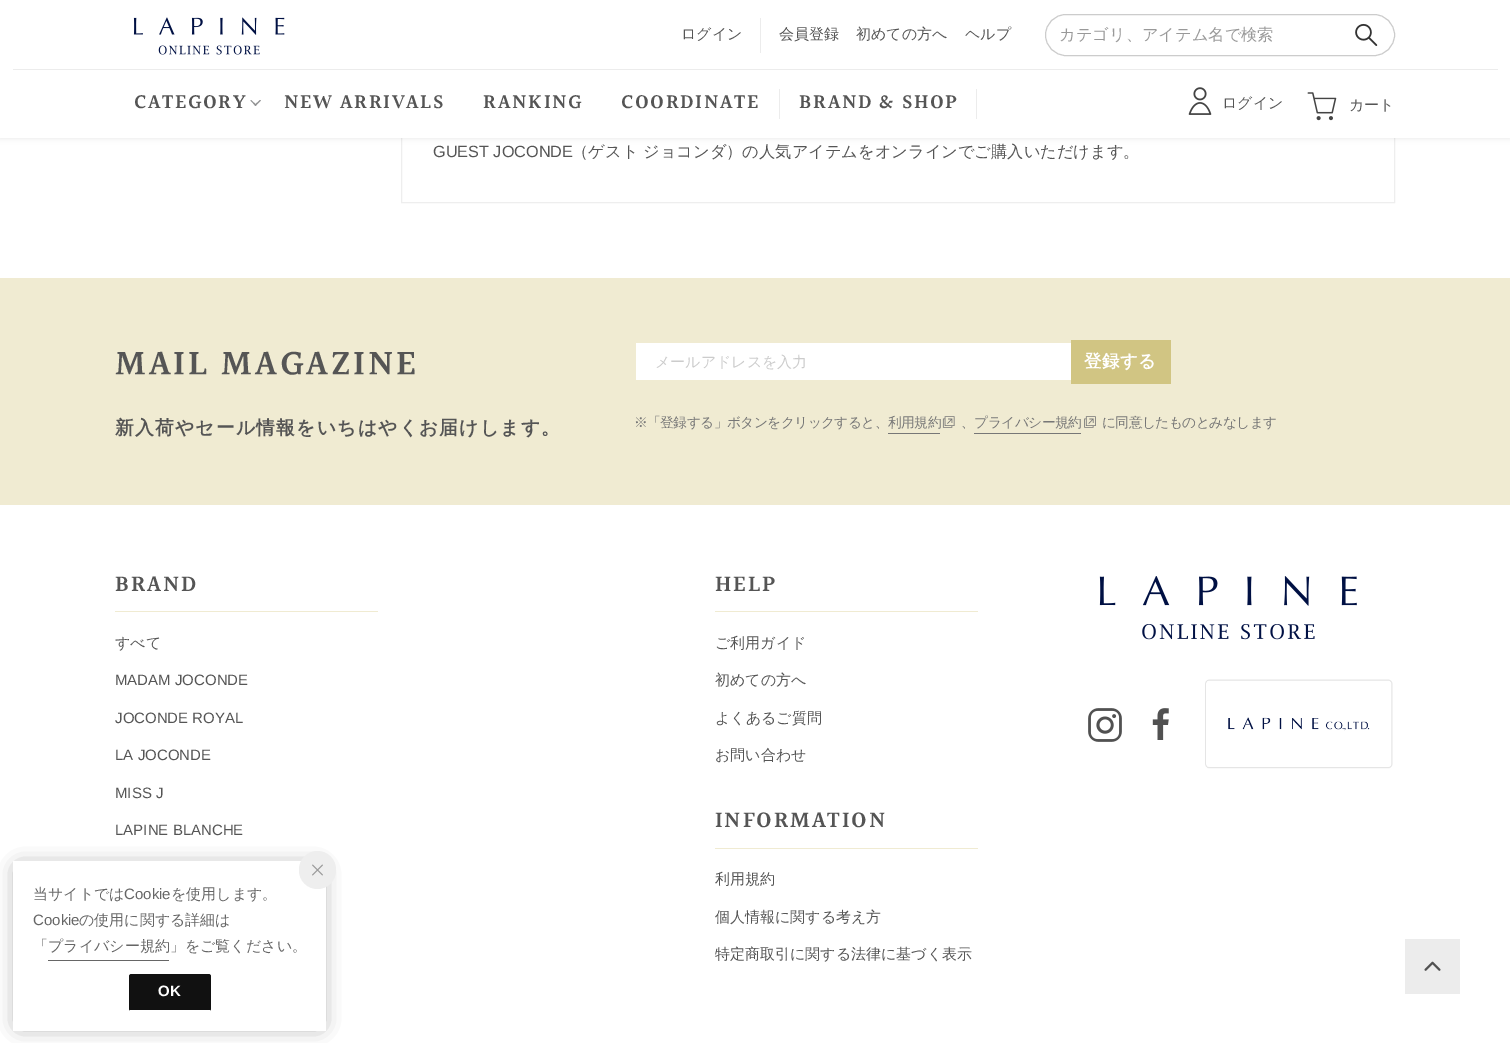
%!PS
<< /PageSize [1510 1043] /PageUsesTransparency true >> setpagedevice
/rgb { 3 { 255 div 3 1 roll } repeat setrgbcolor } def
/font { [ exch dup neg 0 0 3 -1 roll 0 0 ] selectfont } def
/alpha { dup .setfillconstantalpha .setstrokeconstantalpha } def
/roundrect { 5 dict begin { /r /h /w /y /x } { exch def } forall
  x r add y moveto x w add y 2 copy h add r arct x w add y h add x 1 index r arct
  x y h add x y r arct x y 2 copy exch w add exch r arct closepath end } def
/shadow { 12 dict begin { /a /b /q /h /w /y /x } { exch def } forall gsave /was 0 def
  9 -2 -9 { dup b mul 4 div /e exch def 1 sub .425 mul 2.718 exch exp 1 add a .99 .min exch div /now exch def
    1 1 now sub 1 was sub div sub alpha /was now def
    w h .min e 2 mul add 0 gt { x e sub y e sub w e 2 mul add h e 2 mul add
      q e add b .6 mul add w h .min 2 div e add .min 0 .max roundrect fill } if } for grestore end } def
/picture { 5 dict begin { /h /w /y /x /name } { exch def } forall
  gsave x y translate w h scale
  w h 8 [w 0 0 h 0 0] name (r) file false 3 colorimage grestore end } def
0 .pushpdf14devicefilter
0 1043 translate 1 -1 scale
4 setmiterlimit
255 255 255 rgb
0 0 1510 1043 rectfill
238 238 238 rgb
401.5 53.5 993 149 rectstroke
0 0 0 rgb
0 0 1510 138 0 3 0.1 shadow
255 255 255 rgb
0 0 1510 138 rectfill
236 236 236 rgb
13 69 1485 1 rectfill
(img/1.rgb) 133 17 152 38 picture
760 18 1 35 rectfill
204 204 204 rgb
1045.5 14.5 349 41 20.5 roundrect stroke
(img/2.rgb) 1355 23 23 23 picture
145 146 147 rgb
260 100 moveto 261 100.5 lineto 255.5 106 lineto 254.5 105 lineto closepath fill
251 100 moveto 256.5 105 lineto 255.5 106 lineto 250.5 100.5 lineto closepath fill
236 236 236 rgb
976 89 1 30 rectfill
779 89 1 30 rectfill
(img/3.rgb) 1188 87 24 28 picture
(img/4.rgb) 1307 92 30 29 picture
[
  [0 278 1510 227 240 235 210]
  [636 343 435 37 255 255 255]
  [1071 340 100 44 209 197 131]
] { aload pop rgb rectfill } forall
(img/5.rgb) 942 416 13 12 picture
(img/6.rgb) 1084 416 12 12 picture
[
  [888 433 52 1 119 119 119]
  [974 433 107 1 119 119 119]
  [115 611 263 1 240 235 210]
  [715 611 263 1 240 235 210]
  [715 848 263 1 240 235 210]
] { aload pop rgb rectfill } forall
(img/7.rgb) 1099 576 258 64 picture
(img/8.rgb) 1088 708 34 34 picture
(img/9.rgb) 1152 708 17 32 picture
(img/10.rgb) 1205 679 188 90 picture
0 0 0 rgb
20 869 299 155 0 10 0.6 shadow
255 255 255 rgb
13 861 313 170 rectfill
238 238 238 rgb
299 851 37 38 18.5 roundrect fill
(img/11.rgb) 312 864 11 12 picture
102 102 102 rgb
48 960 121 1 rectfill
17 17 17 rgb
129 974 82 37 2.5 roundrect fill
255 255 255 rgb
130 1010 80 1 rectfill
236 236 236 rgb
1405 939 55 55 rectfill
(img/12.rgb) 1424 961 17 10 picture
/WenQuanYiZenHei-Medium 15 font
85 85 85 rgb
[
  [(ログイン) 681 39]
  [(会員登録) 779 39]
  [(初めての方へ) 856 39]
  [(ヘルプ) 965 39]
] { aload pop moveto show } forall
/WenQuanYiZenHei-Medium 16.25 font
153 153 153 rgb
1059 40 moveto (カテゴリ、アイテム名で検索) show
/Halant-SemiBold 20 font
85 85 85 rgb
134 109 moveto 1.6 0 (CATEGORY) ashow
284 109 moveto 1.6 0 (NEW ARRIVALS) ashow
483 109 moveto 1.6 0 (RANKING) ashow
621 109 moveto 1.6 0 (COORDINATE) ashow
799 109 moveto 1.6 0 (BRAND & SHOP) ashow
/WenQuanYiZenHei-Medium 15 font
1222 108 moveto (ログイン) show
1349 110 moveto (カート) show
/LiberationSans-Regular 16.25 font
433 157 moveto (GUEST JOCONDE) show
/WenQuanYiZenHei-Medium 16.25 font
572 157 moveto (（ゲスト) show
643 157 moveto (ジョコンダ）の人気アイテムをオンラインでご購入いただけます。) show
/Halant-SemiBold 35 font
115 376 moveto 2.75 0 (MAIL MAGAZINE) ashow
/WenQuanYiZenHei-Bold 18.75 font
115 434 moveto 1.25 0 (新入荷やセール情報をいちはやくお届けします。) ashow
/WenQuanYiZenHei-Medium 15 font
204 204 204 rgb
655 367 moveto (メールアドレスを入力) show
/WenQuanYiZenHei-Bold 17.5 font
255 255 255 rgb
1084 367 moveto 0.5 0 (登録する) ashow
/WenQuanYiZenHei-Medium 13.75 font
119 119 119 rgb
634 427 moveto -0.6 0 (※「登録する」ボタンをクリックすると、利用規約) ashow
961 427 moveto -0.6 0 (、プライバシー規約) ashow
1102 427 moveto -0.6 0 (に同意したものとみなします) ashow
/Halant-SemiBold 22.5 font
85 85 85 rgb
115 592 moveto 1.75 0 (BRAND) ashow
/WenQuanYiZenHei-Medium 15 font
115 648 moveto (すべて) show
/LiberationSans-Regular 15 font
[
  [(MADAM JOCONDE) 115 685]
  [(JOCONDE ROYAL) 115 723]
  [(LA JOCONDE) 115 760]
  [(MISS J) 115 798]
  [(LAPINE BLANCHE) 115 835]
] { aload pop moveto show } forall
/Halant-SemiBold 22.5 font
715 592 moveto 1.75 0 (HELP) ashow
/WenQuanYiZenHei-Medium 15 font
[
  [(ご利用ガイド) 715 648]
  [(初めての方へ) 715 685]
  [(よくあるご質問) 715 723]
  [(お問い合わせ) 715 760]
] { aload pop moveto show } forall
/Halant-SemiBold 22.5 font
715 828 moveto 1.75 0 (INFORMATION) ashow
/WenQuanYiZenHei-Medium 15 font
[
  [(利用規約) 715 884]
  [(個人情報に関する考え方) 715 922]
  [(特定商取引に関する法律に基づく表示) 715 959]
] { aload pop moveto show } forall
102 102 102 rgb
33 899 moveto (当サイトでは) show
/LiberationSans-Regular 15 font
124 899 moveto (Cookie) show
/WenQuanYiZenHei-Medium 15 font
171 899 moveto (を使用します。) show
/LiberationSans-Regular 15 font
33 925 moveto (Cookie) show
/WenQuanYiZenHei-Medium 15 font
79 925 moveto (の使用に関する詳細は) show
33 951 moveto (「プライバシー規約」をご覧ください。) show
/LiberationSans-Bold 15 font
255 255 255 rgb
158 996 moveto (OK) show
.poppdf14devicefilter showpage
